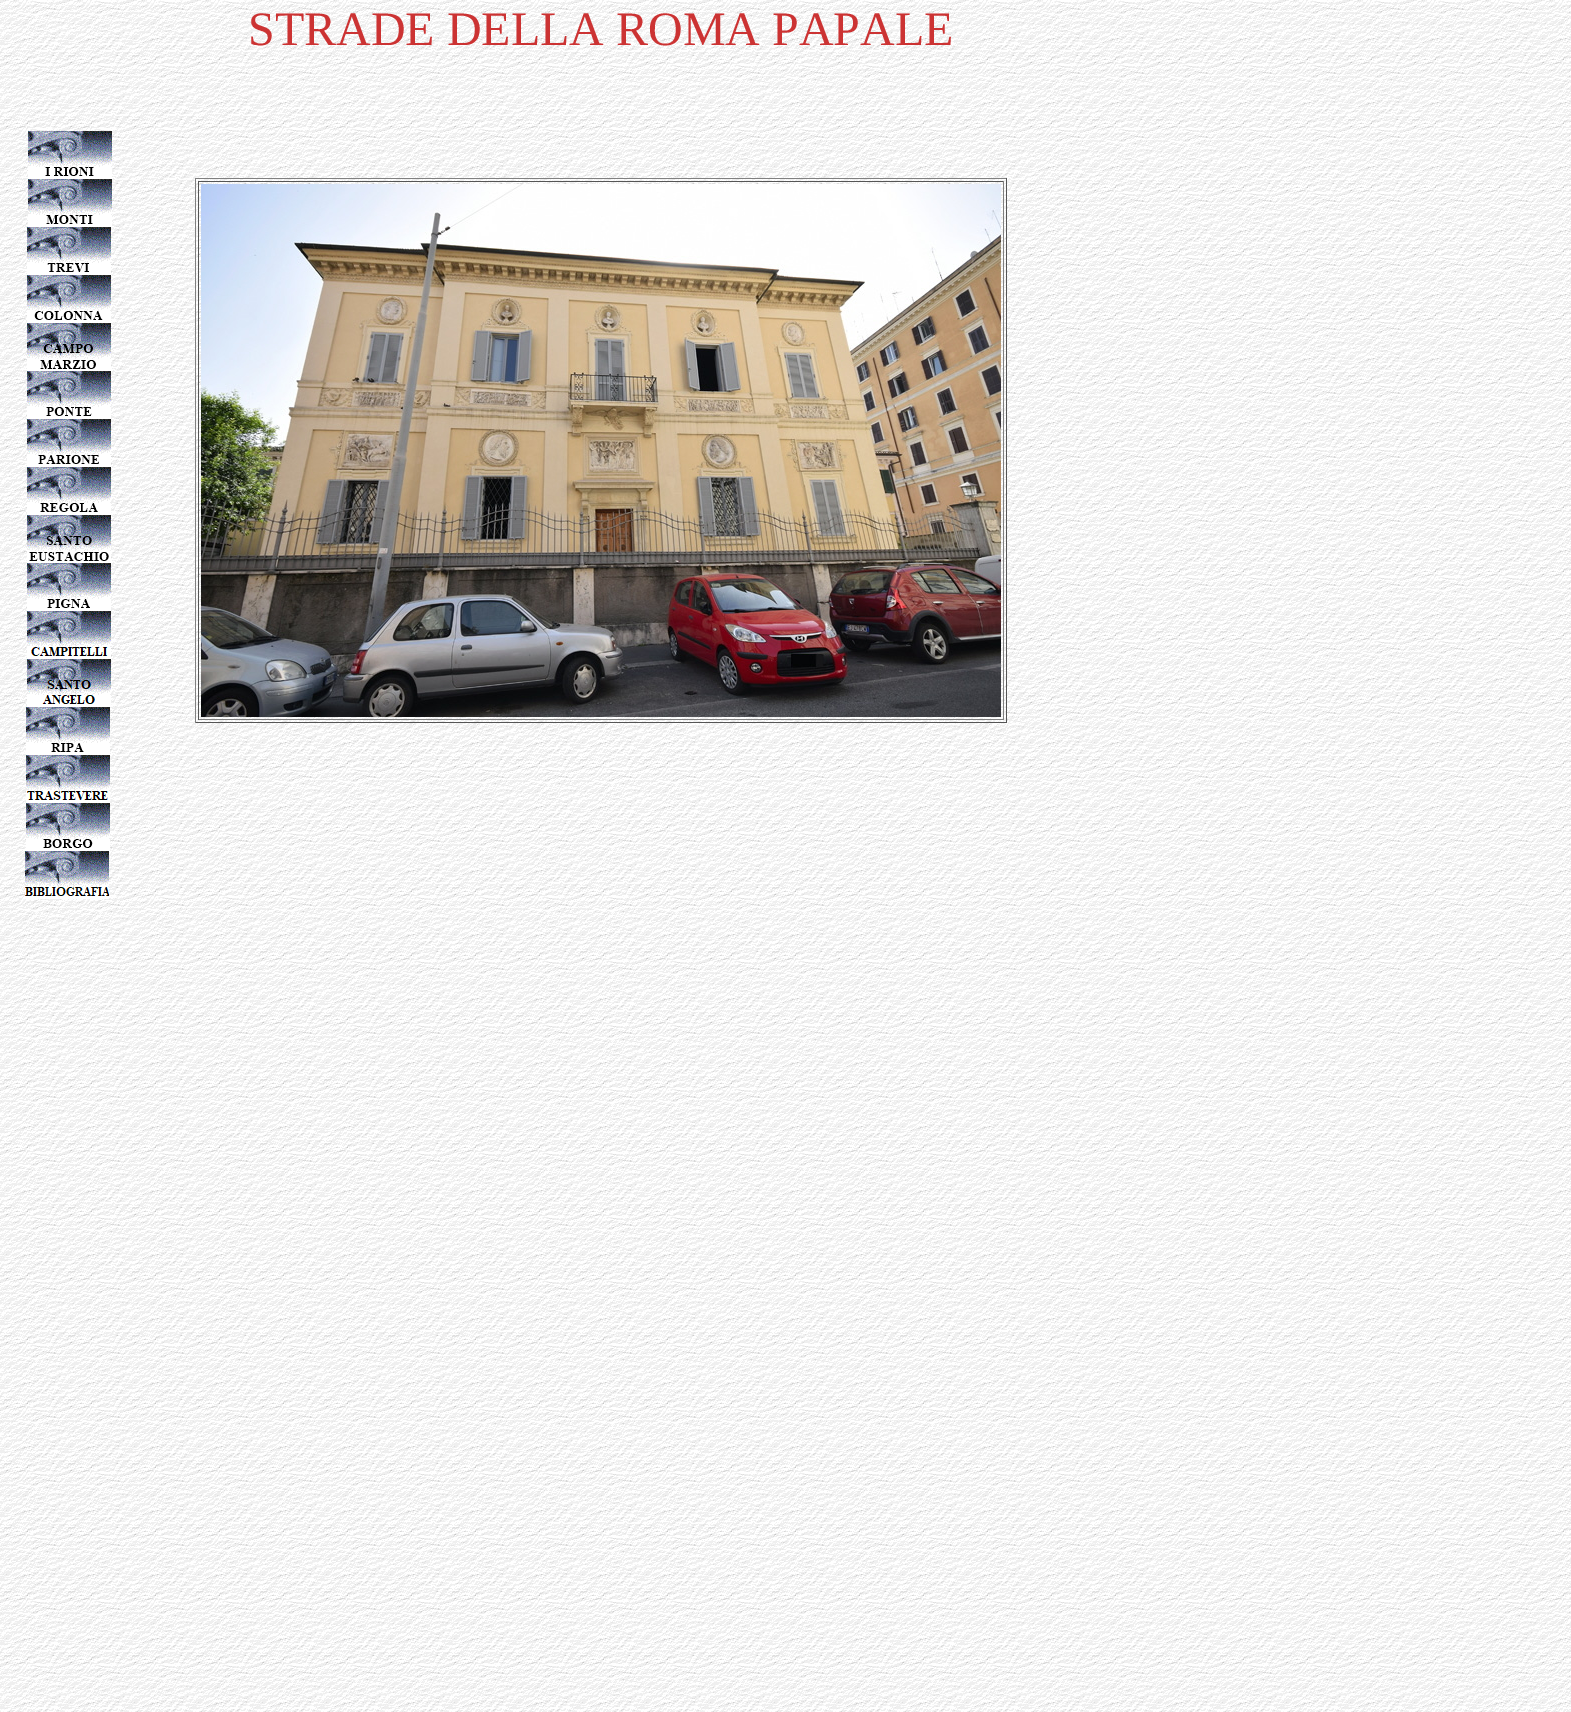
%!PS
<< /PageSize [1571 1712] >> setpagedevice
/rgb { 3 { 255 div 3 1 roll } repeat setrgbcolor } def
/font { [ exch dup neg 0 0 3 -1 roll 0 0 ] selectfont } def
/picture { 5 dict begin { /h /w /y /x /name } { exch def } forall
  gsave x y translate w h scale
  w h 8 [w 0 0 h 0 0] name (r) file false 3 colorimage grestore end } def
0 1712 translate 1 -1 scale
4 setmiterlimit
255 255 255 rgb
0 0 1571 1712 rectfill
(img/1.rgb) 0 0 1571 1712 picture
[
  [195 178 812 1 128 128 128]
  [1006 178 1 545 85 85 85]
  [195 722 812 1 85 85 85]
  [195 178 1 545 128 128 128]
  [198 181 806 1 85 85 85]
  [1003 181 1 539 128 128 128]
  [198 719 806 1 128 128 128]
  [198 181 1 539 85 85 85]
] { aload pop rgb rectfill } forall
(img/2.rgb) 201 184 800 533 picture
(img/3.rgb) 28 131 84 48 picture
(img/4.rgb) 28 179 84 48 picture
(img/5.rgb) 27 227 84 48 picture
(img/6.rgb) 27 275 84 48 picture
(img/7.rgb) 27 323 84 48 picture
(img/8.rgb) 27 371 84 48 picture
(img/9.rgb) 27 419 84 48 picture
(img/10.rgb) 27 467 84 48 picture
(img/11.rgb) 27 515 84 48 picture
(img/12.rgb) 27 563 84 48 picture
(img/13.rgb) 27 611 84 48 picture
(img/14.rgb) 27 659 84 48 picture
(img/15.rgb) 26 707 84 48 picture
(img/16.rgb) 26 755 84 48 picture
(img/17.rgb) 26 803 84 48 picture
(img/18.rgb) 25 851 84 48 picture
/LiberationSerif-Regular 48 font
204 51 51 rgb
248 45 moveto (STRADE DELLA ROMA PAPALE) show
showpage
